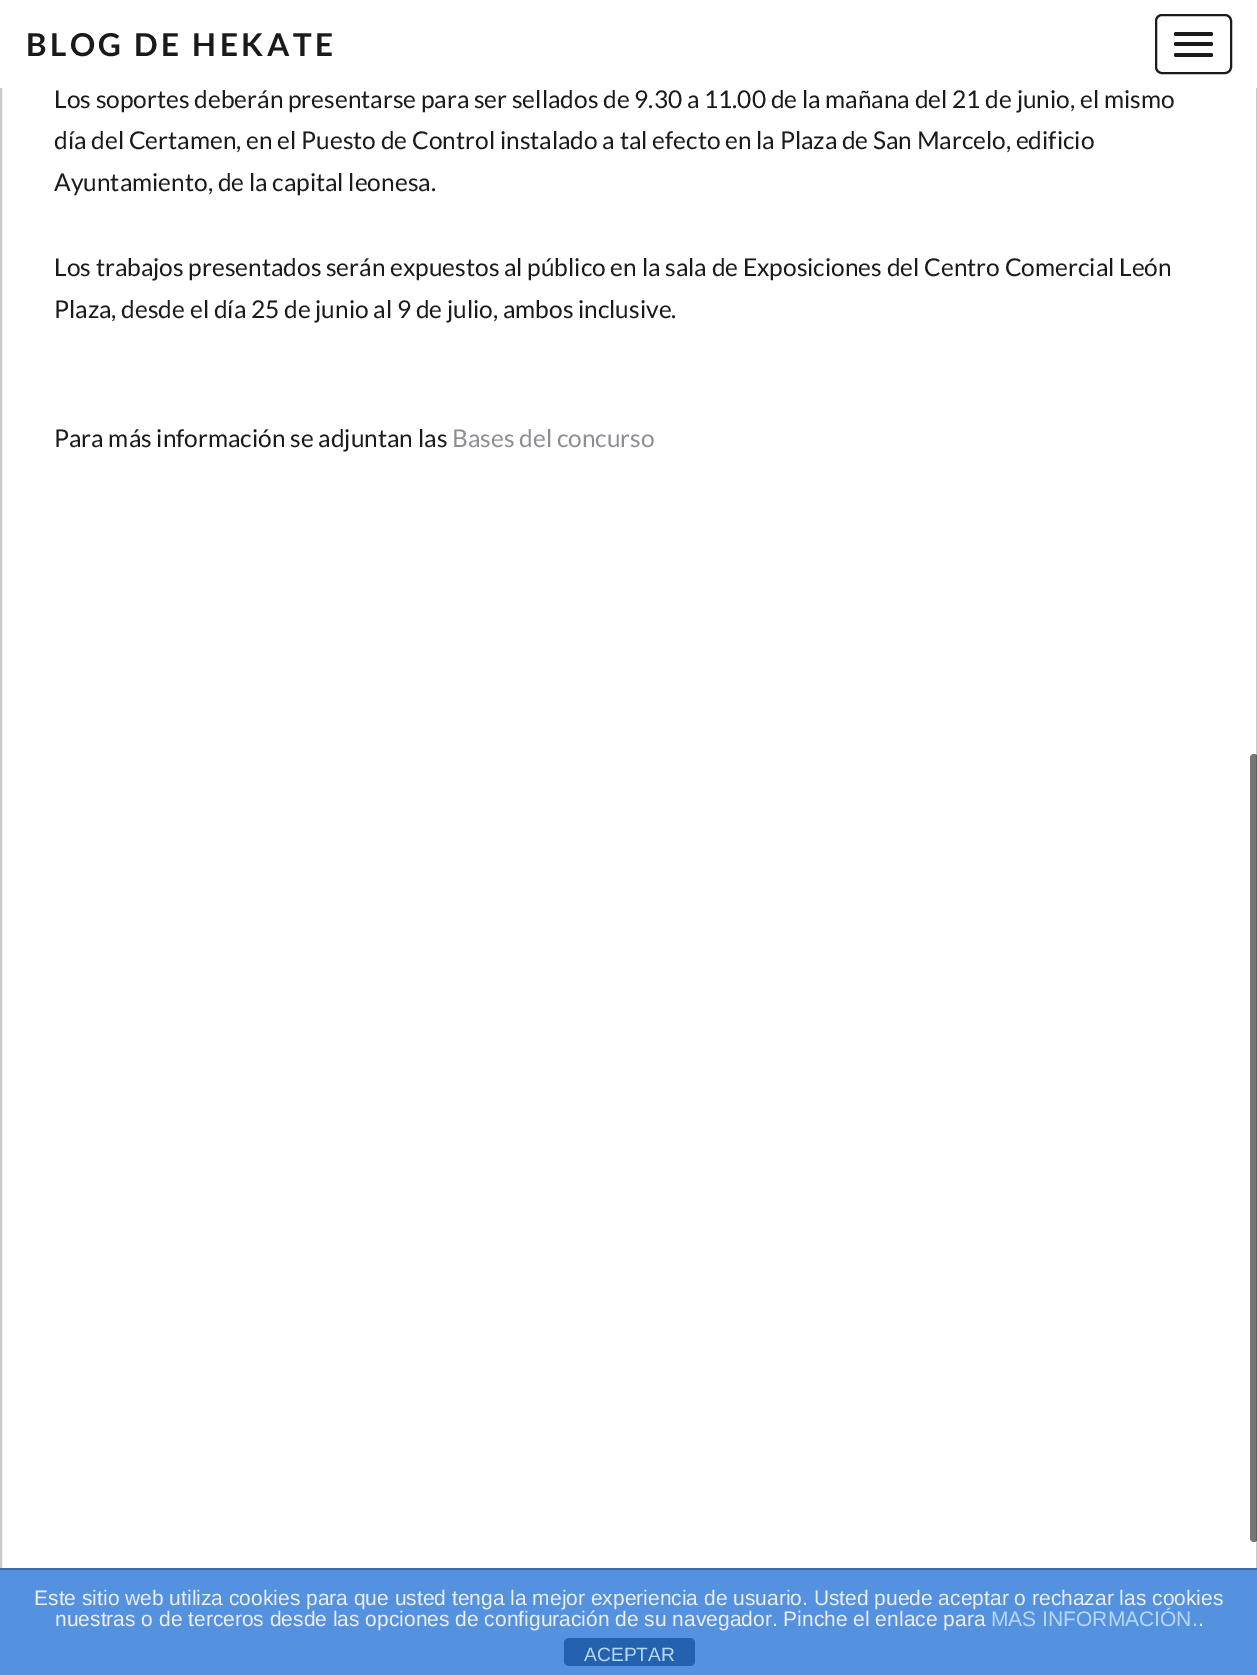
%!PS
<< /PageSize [1257 1675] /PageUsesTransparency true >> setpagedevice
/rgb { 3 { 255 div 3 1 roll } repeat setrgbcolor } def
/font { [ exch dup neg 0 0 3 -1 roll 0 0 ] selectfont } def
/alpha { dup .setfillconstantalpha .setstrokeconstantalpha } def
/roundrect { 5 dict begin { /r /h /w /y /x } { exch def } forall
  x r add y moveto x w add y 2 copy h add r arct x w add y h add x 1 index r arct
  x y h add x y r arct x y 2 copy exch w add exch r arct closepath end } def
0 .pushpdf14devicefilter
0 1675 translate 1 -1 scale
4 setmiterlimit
255 255 255 rgb
0 0 1257 1675 rectfill
202 202 202 rgb
2 setlinewidth
1 -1 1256 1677 rectstroke
255 255 255 rgb
0 0 1257 88 rectfill
26 26 26 rgb
1156 15 75 58 6 roundrect stroke
1174 32 39 4 2 roundrect fill
1174 42 39 4 2 roundrect fill
1174 53 39 4 2 roundrect fill
0.6 alpha
1250 754 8 788 4 roundrect fill
1 alpha
84 146 224 rgb
0 1570 1257 105 rectfill
63 109 167 rgb
0 1568 1257 2 rectfill
36 98 176 rgb
564 1638 131 28 5 roundrect fill
/Lato-Bold 31.5 font
26 26 26 rgb
26 56 moveto 3.5 0 (BLOG DE HEKATE) ashow
/Lato-Regular 24.5 font
[
  [(Los soportes deberán presentarse para ser sellados de 9.30 a 11.00 de la mañana del 21 de junio, el mismo) 54 108]
  [(día del Certamen, en el Puesto de Control instalado a tal efecto en la Plaza de San Marcelo, edificio) 54 149]
  [(Ayuntamiento, de la capital leonesa.) 54 191]
  [(Los trabajos presentados serán expuestos al público en la sala de Exposiciones del Centro Comercial León) 54 276]
  [(Plaza, desde el día 25 de junio al 9 de julio, ambos inclusive.) 54 318]
  [(Para más información se adjuntan las) 54 447]
] { aload pop moveto show } forall
141 141 149 rgb
452 447 moveto (Bases del concurso) show
/LiberationSans-Regular 21 font
238 238 238 rgb
34 1605 moveto (Este sitio web utiliza cookies para que usted tenga la mejor experiencia de usuario. Usted puede aceptar o rechazar las cookies) show
55 1626 moveto (nuestras o de terceros desde las opciones de configuración de su navegador. Pinche el enlace para) show
183 215 255 rgb
991 1626 moveto (MAS INFORMACIÓN.) show
238 238 238 rgb
1198 1626 moveto (.) show
/LiberationSans-Regular 19.25 font
183 215 255 rgb
584 1661 moveto (ACEPTAR) show
.poppdf14devicefilter showpage
